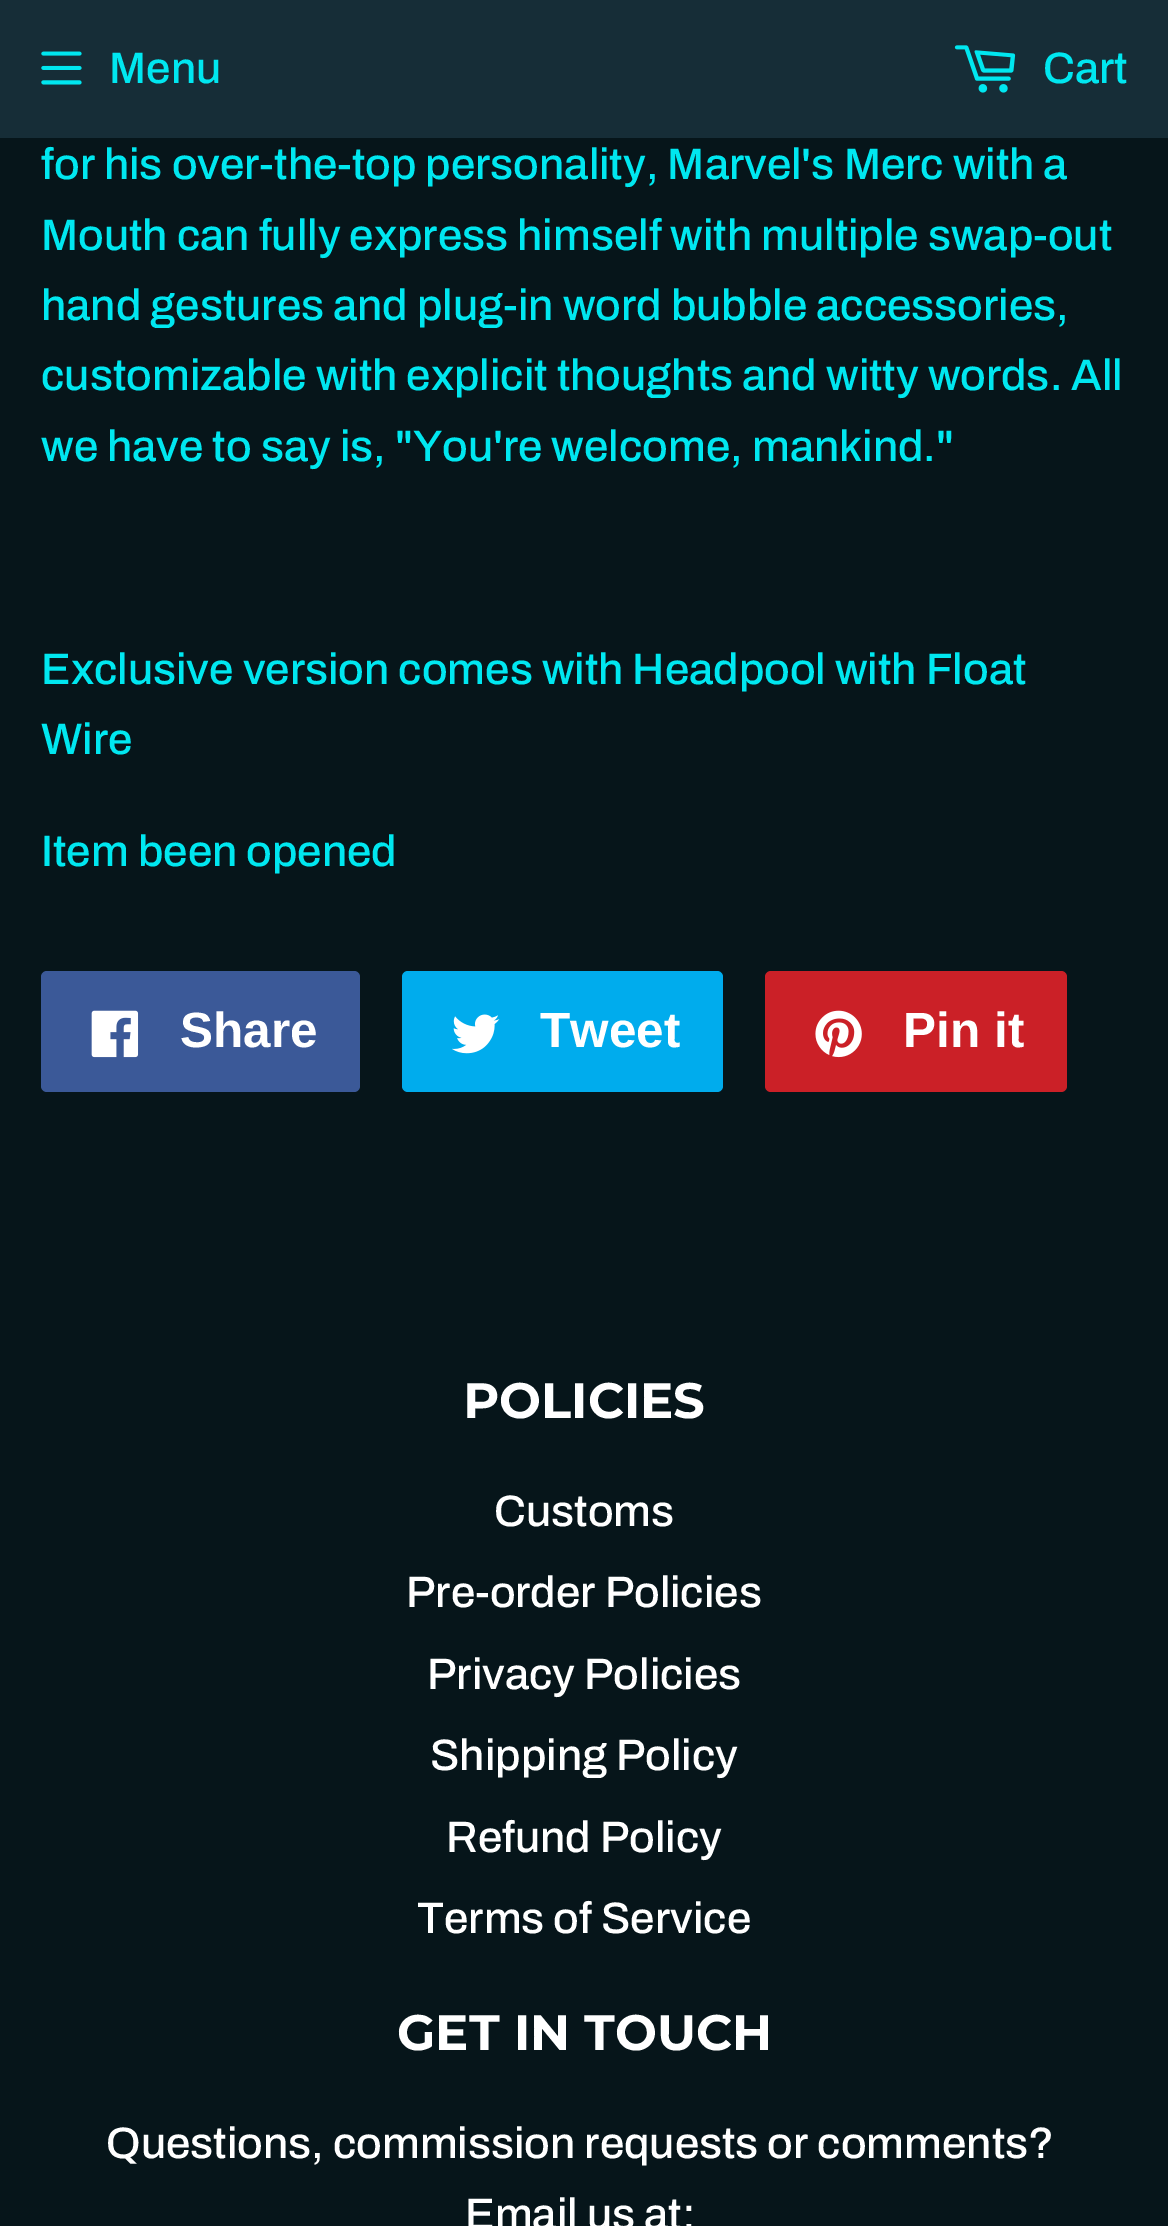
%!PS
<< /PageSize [1168 2226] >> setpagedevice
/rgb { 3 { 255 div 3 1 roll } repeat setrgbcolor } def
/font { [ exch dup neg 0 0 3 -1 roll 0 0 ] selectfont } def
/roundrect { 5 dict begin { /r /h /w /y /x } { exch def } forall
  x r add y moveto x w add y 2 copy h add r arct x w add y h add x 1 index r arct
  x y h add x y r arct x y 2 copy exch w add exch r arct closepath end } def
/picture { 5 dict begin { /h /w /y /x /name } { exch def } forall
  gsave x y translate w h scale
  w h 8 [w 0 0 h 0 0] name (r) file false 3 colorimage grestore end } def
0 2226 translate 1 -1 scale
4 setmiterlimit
6 21 26 rgb
0 0 1168 2226 rectfill
22 45 55 rgb
0 0 1168 138 rectfill
(img/1.rgb) 41 51 41 34 picture
(img/2.rgb) 954 45 62 48 picture
59 89 152 rgb
41 971 319 121 6 roundrect fill
(img/3.rgb) 91 1010 48 48 picture
0 172 237 rgb
402 971 321 121 6 roundrect fill
(img/4.rgb) 452 1014 48 40 picture
203 32 39 rgb
765 971 302 121 6 roundrect fill
(img/5.rgb) 815 1010 47 48 picture
/Archivo-Medium 44 font
0 231 240 rgb
[
  [(Menu) 109 83]
  [(Cart) 1043 83]
  [(for his over-the-top personality, Marvel's Merc with a) 41 179]
  [(Mouth can fully express himself with multiple swap-out) 41 250]
  [(hand gestures and plug-in word bubble accessories,) 41 320]
  [(customizable with explicit thoughts and witty words. All) 41 390]
  [(we have to say is, "You're welcome, mankind.") 41 461]
  [(Exclusive version comes with Headpool with Float) 41 684]
  [(Wire) 41 754]
  [(Item been opened) 41 866]
] { aload pop moveto show } forall
/LiberationSans-Bold 49.5 font
255 255 255 rgb
[
  [(Share) 180 1047]
  [(Tweet) 540 1047]
  [(Pin it) 903 1047]
] { aload pop moveto show } forall
/Montserrat-Bold 49.75 font
463 1418 moveto (POLICIES) show
/Archivo-Medium 44 font
[
  [(Customs) 494 1526]
  [(Pre-order Policies) 406 1607]
  [(Privacy Policies) 427 1689]
  [(Shipping Policy) 430 1770]
  [(Refund Policy) 446 1852]
  [(Terms of Service) 417 1933]
] { aload pop moveto show } forall
/Montserrat-Bold 49.75 font
397 2050 moveto (GET IN TOUCH) show
/Archivo-Medium 44 font
106 2158 moveto (Questions, commission requests or comments?) show
465 2229 moveto (Email us at:) show
showpage
